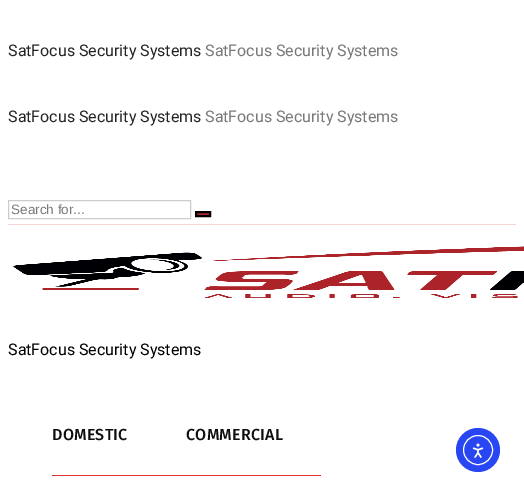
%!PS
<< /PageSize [524 496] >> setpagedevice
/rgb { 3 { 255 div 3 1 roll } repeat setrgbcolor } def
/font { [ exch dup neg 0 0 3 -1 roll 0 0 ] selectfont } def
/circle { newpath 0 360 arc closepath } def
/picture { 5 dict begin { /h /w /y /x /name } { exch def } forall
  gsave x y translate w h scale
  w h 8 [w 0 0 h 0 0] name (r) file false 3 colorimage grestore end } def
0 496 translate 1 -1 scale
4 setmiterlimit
255 255 255 rgb
0 0 524 496 rectfill
204 204 204 rgb
8.5 200.5 182 18 rectstroke
172 37 42 rgb
196 212 moveto 210 212 lineto 210 216 lineto 196 216 lineto closepath gsave fill grestore
0 0 0 rgb
2 setlinewidth
stroke
248 214 214 rgb
8 224 508 1 rectfill
(img/1.rgb) 13 246 511 52 picture
221 51 51 rgb
52 475 269 1 rectfill
40 71 243 rgb
478 450 22 circle fill
255 255 255 rgb
1 setlinewidth
478 450 14.5 circle stroke
(img/2.rgb) 472 443 12 15 picture
/Roboto-Regular 16 font
37 37 37 rgb
8 56 moveto (SatFocus Security Systems) show
121 121 121 rgb
205 56 moveto (SatFocus Security Systems) show
37 37 37 rgb
8 122 moveto (SatFocus Security Systems) show
121 121 121 rgb
205 122 moveto (SatFocus Security Systems) show
/LiberationSans-Regular 13.5 font
11 214 moveto (Search for...) show
/Roboto-Regular 16 font
0 0 0 rgb
8 355 moveto (SatFocus Security Systems) show
/FiraSans-Medium 16 font
14 14 14 rgb
52 440 moveto 0.25 0 (DOMESTIC) ashow
186 440 moveto 0.25 0 (COMMERCIAL) ashow
showpage
